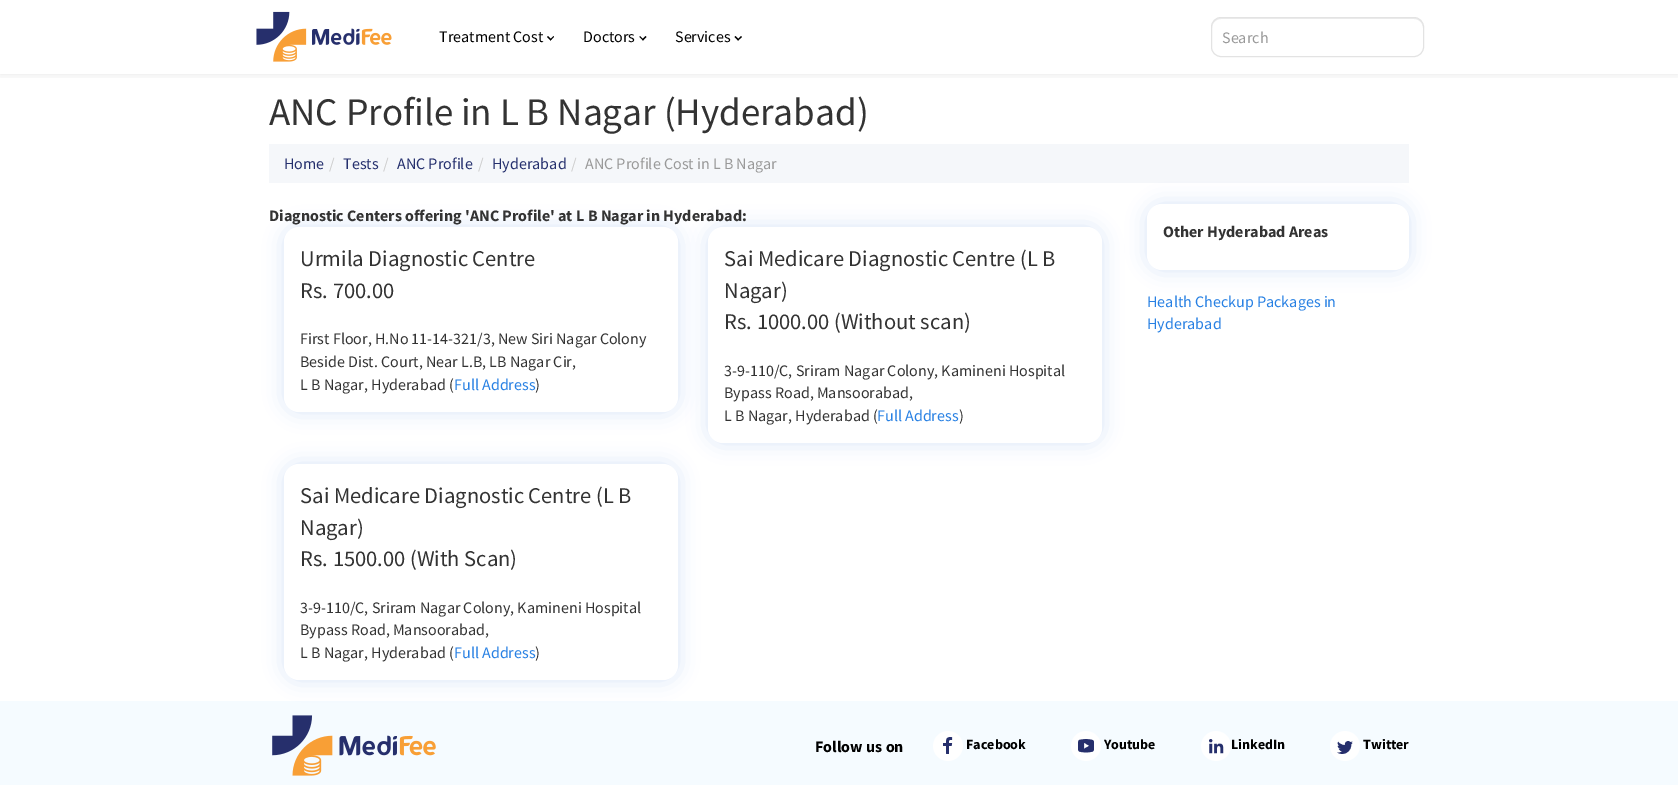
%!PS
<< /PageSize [1678 785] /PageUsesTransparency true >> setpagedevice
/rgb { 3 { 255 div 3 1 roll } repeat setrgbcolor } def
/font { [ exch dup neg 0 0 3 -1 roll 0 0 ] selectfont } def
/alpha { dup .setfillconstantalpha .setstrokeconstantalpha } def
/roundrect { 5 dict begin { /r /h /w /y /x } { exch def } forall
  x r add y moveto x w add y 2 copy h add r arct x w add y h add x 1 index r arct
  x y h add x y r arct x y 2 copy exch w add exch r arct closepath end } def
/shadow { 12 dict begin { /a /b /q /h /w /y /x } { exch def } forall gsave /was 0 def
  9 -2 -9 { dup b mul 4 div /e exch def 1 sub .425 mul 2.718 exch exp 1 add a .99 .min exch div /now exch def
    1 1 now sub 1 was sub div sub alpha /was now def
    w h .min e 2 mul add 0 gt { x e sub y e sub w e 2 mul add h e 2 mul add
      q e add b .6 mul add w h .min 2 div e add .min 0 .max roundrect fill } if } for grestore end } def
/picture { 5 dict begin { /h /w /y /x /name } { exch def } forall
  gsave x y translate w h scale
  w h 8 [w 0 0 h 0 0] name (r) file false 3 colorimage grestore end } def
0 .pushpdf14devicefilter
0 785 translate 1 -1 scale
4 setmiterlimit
255 255 255 rgb
0 0 1678 785 rectfill
gsave
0 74 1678 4 rectclip
0 0 0 rgb
0 0 1678 74 0 5 0.1 shadow
grestore
(img/1.rgb) 256 11 136 51 picture
0 0 0 rgb
553.5 36 moveto 554 37 lineto 550.5 40.5 lineto 550 39.5 lineto closepath fill
548 36 moveto 551.5 39.5 lineto 550.5 40.5 lineto 547 37 lineto closepath fill
645.5 36 moveto 646.5 37 lineto 643 40.5 lineto 642 39.5 lineto closepath fill
640 36 moveto 643.5 39.5 lineto 643 40.5 lineto 639.5 37 lineto closepath fill
741 36 moveto 742 37 lineto 738 40.5 lineto 737.5 39.5 lineto closepath fill
735.5 36 moveto 739 39.5 lineto 738 40.5 lineto 734.5 37 lineto closepath fill
236 236 236 rgb
1221 19 moveto 1414 19 lineto 1419 19 1423 23 1423 28 curveto 1423 27 lineto 1423 22 1419 18 1414 18 curveto 1221 18 lineto 1216 18 1212 22 1212 27 curveto 1212 28 lineto 1212 23 1216 19 1221 19 curveto closepath fill
227 227 227 rgb
1211.5 17.5 212 39 9.5 roundrect stroke
245 247 250 rgb
269 144 1140 39 rectfill
11 77 204 rgb
284 227 394 185 15 10 0.15 shadow
255 255 255 rgb
284 227 394 185 15 roundrect fill
11 77 204 rgb
708 227 394 216 15 10 0.15 shadow
255 255 255 rgb
708 227 394 216 15 roundrect fill
245 251 255 rgb
0 701 1678 84 rectfill
11 77 204 rgb
284 464 394 216 15 10 0.15 shadow
255 255 255 rgb
284 464 394 216 15 roundrect fill
11 77 204 rgb
1147 204 262 66 15 10 0.15 shadow
255 255 255 rgb
1147 204 262 66 15 roundrect fill
(img/2.rgb) 272 715 164 61 picture
(img/3.rgb) 933 731 30 30 picture
(img/4.rgb) 1071 731 30 30 picture
(img/5.rgb) 1201 731 30 30 picture
(img/6.rgb) 1330 731 30 30 picture
/SourceSansPro-Regular 16 font
0 0 0 rgb
[
  [(Treatment Cost) 439 42]
  [(Doctors) 583 42]
  [(Services) 675 42]
] { aload pop moveto show } forall
153 153 153 rgb
1222 43 moveto (Search) show
/SourceSansPro-Regular 39 font
51 51 51 rgb
269 125 moveto (ANC Profile in L B Nagar \(Hyderabad\)) show
/SourceSansPro-Regular 16 font
36 47 109 rgb
284 169 moveto (Home) show
204 204 204 rgb
329 169 moveto (/) show
36 47 109 rgb
343 169 moveto (Tests) show
204 204 204 rgb
383 169 moveto (/) show
36 47 109 rgb
397 169 moveto (ANC Profile) show
204 204 204 rgb
478 169 moveto (/) show
36 47 109 rgb
492 169 moveto (Hyderabad) show
204 204 204 rgb
571 169 moveto (/) show
153 153 153 rgb
585 169 moveto (ANC Profile Cost in L B Nagar) show
/SourceSansPro-Bold 16 font
51 51 51 rgb
269 221 moveto (Diagnostic Centers offering 'ANC Profile' at L B Nagar in Hyderabad:) show
/SourceSansPro-Regular 22.5 font
300 266 moveto (Urmila Diagnostic Centre) show
300 298 moveto (Rs. 700.00) show
/SourceSansPro-Regular 16 font
[
  [(First Floor, H.No 11-14-321/3, New Siri Nagar Colony) 300 344]
  [(Beside Dist. Court, Near L.B, LB Nagar Cir,) 300 367]
  [(L B Nagar, Hyderabad \() 300 390]
] { aload pop moveto show } forall
39 128 227 rgb
454 390 moveto (Full Address) show
51 51 51 rgb
535 390 moveto (\)) show
/SourceSansPro-Regular 22.5 font
[
  [(Sai Medicare Diagnostic Centre \(L B) 724 266]
  [(Nagar\)) 724 298]
  [(Rs. 1000.00 \(Without scan\)) 724 329]
] { aload pop moveto show } forall
/SourceSansPro-Regular 16 font
[
  [(3-9-110/C, Sriram Nagar Colony, Kamineni Hospital) 724 376]
  [(Bypass Road, Mansoorabad,) 724 398]
  [(L B Nagar, Hyderabad \() 724 421]
] { aload pop moveto show } forall
39 128 227 rgb
877 421 moveto (Full Address) show
51 51 51 rgb
959 421 moveto (\)) show
/SourceSansPro-Regular 22.5 font
[
  [(Sai Medicare Diagnostic Centre \(L B) 300 503]
  [(Nagar\)) 300 535]
  [(Rs. 1500.00 \(With Scan\)) 300 566]
] { aload pop moveto show } forall
/SourceSansPro-Regular 16 font
[
  [(3-9-110/C, Sriram Nagar Colony, Kamineni Hospital) 300 613]
  [(Bypass Road, Mansoorabad,) 300 635]
  [(L B Nagar, Hyderabad \() 300 658]
] { aload pop moveto show } forall
39 128 227 rgb
454 658 moveto (Full Address) show
51 51 51 rgb
535 658 moveto (\)) show
/SourceSansPro-Bold 16 font
1163 237 moveto (Other Hyderabad Areas) show
/SourceSansPro-Regular 16 font
39 128 227 rgb
1147 307 moveto (Health Checkup Packages in) show
1147 329 moveto (Hyderabad) show
/SourceSansPro-Bold 16 font
0 0 0 rgb
815 752 moveto (Follow us on) show
/SourceSansPro-Bold 14 font
[
  [(Facebook) 966 749]
  [(Youtube) 1104 749]
  [(LinkedIn) 1231 749]
  [(Twitter) 1363 749]
] { aload pop moveto show } forall
.poppdf14devicefilter showpage
